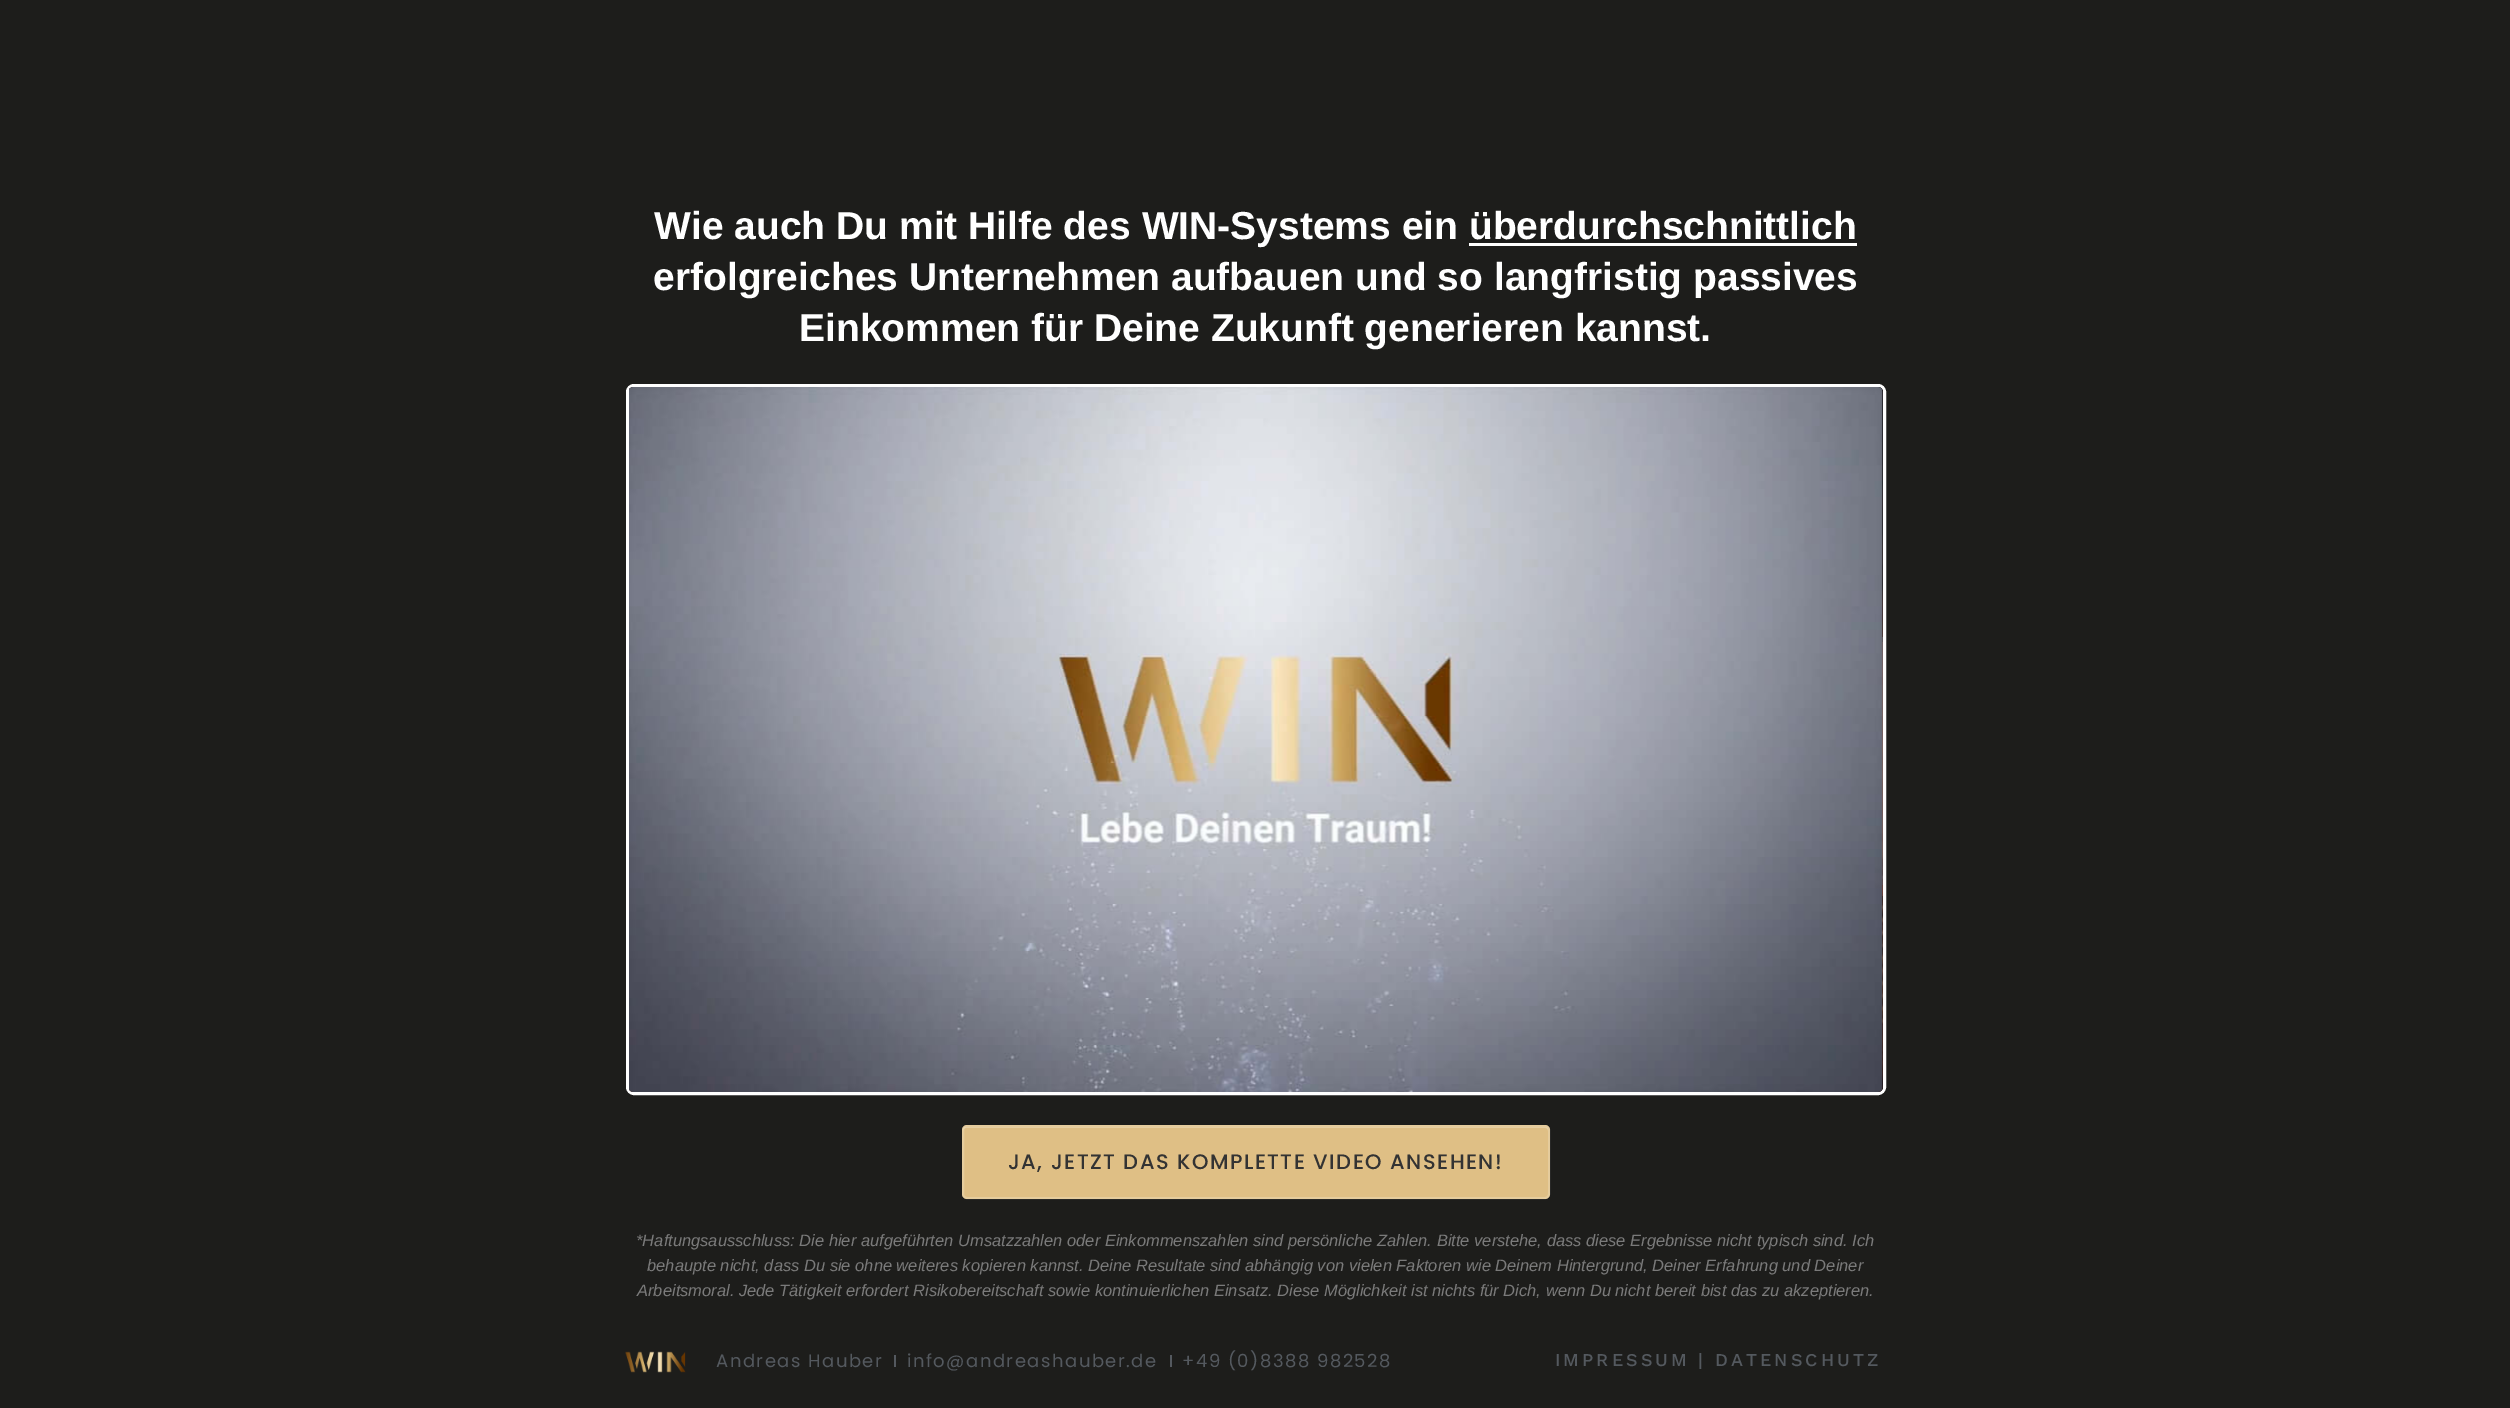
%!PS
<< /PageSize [2510 1408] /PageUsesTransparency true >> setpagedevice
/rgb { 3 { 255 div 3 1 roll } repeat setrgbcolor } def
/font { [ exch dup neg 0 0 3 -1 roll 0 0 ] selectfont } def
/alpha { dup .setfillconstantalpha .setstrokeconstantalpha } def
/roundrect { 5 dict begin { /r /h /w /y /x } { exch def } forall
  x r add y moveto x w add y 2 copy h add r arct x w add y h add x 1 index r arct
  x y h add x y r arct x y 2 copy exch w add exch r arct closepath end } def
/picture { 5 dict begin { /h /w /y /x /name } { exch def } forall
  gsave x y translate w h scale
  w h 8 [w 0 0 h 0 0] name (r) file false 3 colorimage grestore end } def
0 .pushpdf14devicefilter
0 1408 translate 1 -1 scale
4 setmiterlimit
29 29 27 rgb
0 0 2510 1408 rectfill
255 255 255 rgb
1469 243 388 3 rectfill
3 setlinewidth
627.5 385.5 1257 708 6.5 roundrect stroke
0 0 0 rgb
629 387 1254 705 5 roundrect fill
(img/1.rgb) 629 387 1254 705 picture
(img/2.rgb) 629 387 1254 705 picture
223 191 133 rgb
962 1125 588 74 5 roundrect fill
229 204 157 rgb
966 1128 moveto 1545 1128 lineto 1547 1128 1548 1129 1548 1131 curveto 1548 1130 lineto 1548 1128 1547 1127 1545 1127 curveto 966 1127 lineto 964 1127 963 1128 963 1130 curveto 963 1131 lineto 963 1129 964 1128 966 1128 curveto closepath fill
0.2 alpha
255 255 255 rgb
2 setlinewidth
963 1126 586 72 4 roundrect stroke
1 alpha
(img/3.rgb) 625 1351 61 22 picture
84 89 95 rgb
894 1355 2 12 rectfill
1170 1355 2 12 rectfill
/LiberationSans-Bold 39 font
255 255 255 rgb
[
  [(Wie auch Du mit Hilfe des WIN-Systems ein überdurchschnittlich) 654 239]
  [(erfolgreiches Unternehmen aufbauen und so langfristig passives) 653 290]
  [(Einkommen für Deine Zukunft generieren kannst.) 799 341]
] { aload pop moveto show } forall
/Poppins-Medium 21 font
51 51 51 rgb
1008 1169 moveto 1.5 0 (JA, JETZT DAS KOMPLETTE VIDEO ANSEHEN!) ashow
/LiberationSans-Italic 16.5 font
122 122 122 rgb
[
  [(*Haftungsausschluss: Die hier aufgeführten Umsatzzahlen oder Einkommenszahlen sind persönliche Zahlen. Bitte verstehe, dass diese Ergebnisse nicht typisch sind. Ich) 636 1246]
  [(behaupte nicht, dass Du sie ohne weiteres kopieren kannst. Deine Resultate sind abhängig von vielen Faktoren wie Deinem Hintergrund, Deiner Erfahrung und Deiner) 647 1271]
  [(Arbeitsmoral. Jede Tätigkeit erfordert Risikobereitschaft sowie kontinuierlichen Einsatz. Diese Möglichkeit ist nichts für Dich, wenn Du nicht bereit bist das zu akzeptieren.) 637 1296]
] { aload pop moveto show } forall
/Poppins-Regular 18 font
84 89 95 rgb
716 1367 moveto 1.5 0 (Andreas Hauber) ashow
907 1367 moveto 1.5 0 (info@andreashauber.de) ashow
1182 1367 moveto 1.5 0 (+49 \(0\)8388 982528) ashow
/WorkSans-Medium 18 font
1555 1366 moveto 3 0 (IMPRESSUM | DATENSCHUTZ) ashow
.poppdf14devicefilter showpage
